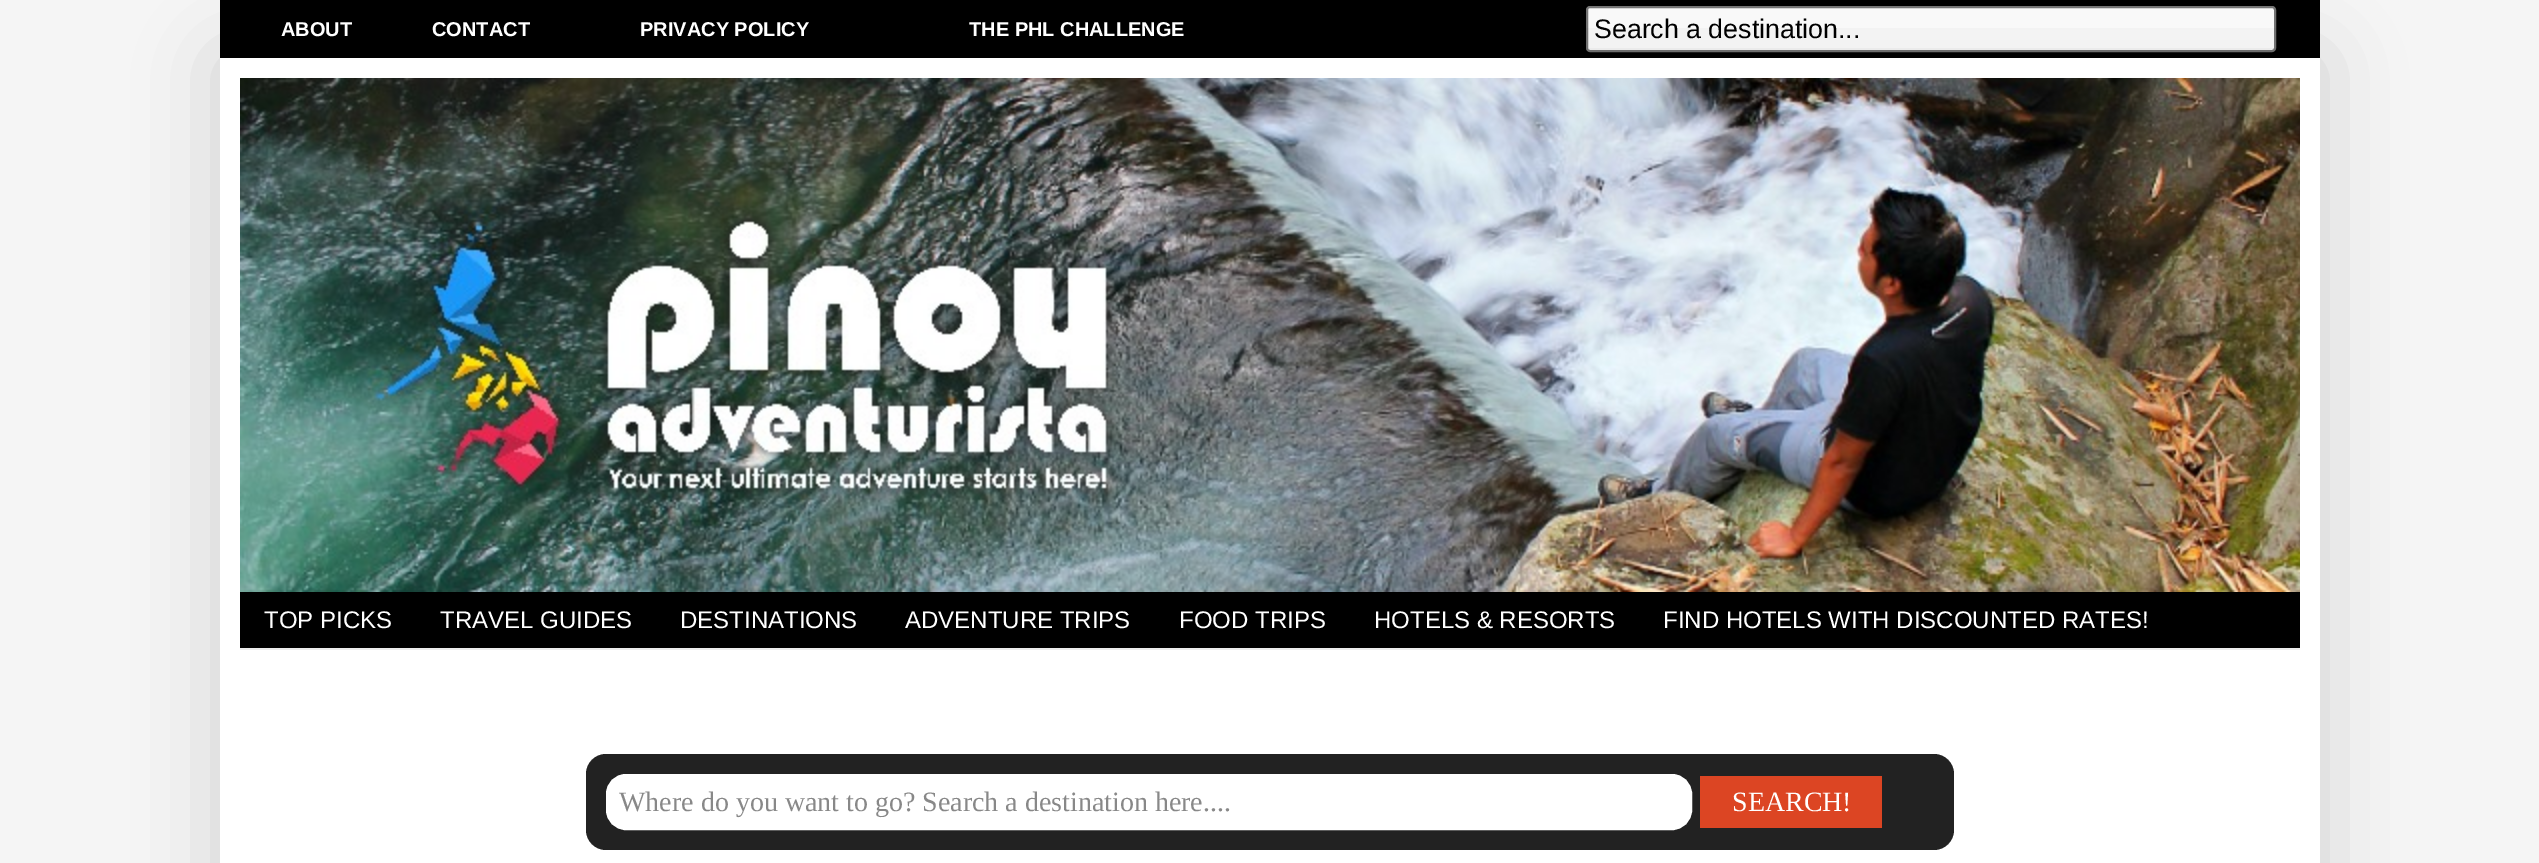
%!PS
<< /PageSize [2539 863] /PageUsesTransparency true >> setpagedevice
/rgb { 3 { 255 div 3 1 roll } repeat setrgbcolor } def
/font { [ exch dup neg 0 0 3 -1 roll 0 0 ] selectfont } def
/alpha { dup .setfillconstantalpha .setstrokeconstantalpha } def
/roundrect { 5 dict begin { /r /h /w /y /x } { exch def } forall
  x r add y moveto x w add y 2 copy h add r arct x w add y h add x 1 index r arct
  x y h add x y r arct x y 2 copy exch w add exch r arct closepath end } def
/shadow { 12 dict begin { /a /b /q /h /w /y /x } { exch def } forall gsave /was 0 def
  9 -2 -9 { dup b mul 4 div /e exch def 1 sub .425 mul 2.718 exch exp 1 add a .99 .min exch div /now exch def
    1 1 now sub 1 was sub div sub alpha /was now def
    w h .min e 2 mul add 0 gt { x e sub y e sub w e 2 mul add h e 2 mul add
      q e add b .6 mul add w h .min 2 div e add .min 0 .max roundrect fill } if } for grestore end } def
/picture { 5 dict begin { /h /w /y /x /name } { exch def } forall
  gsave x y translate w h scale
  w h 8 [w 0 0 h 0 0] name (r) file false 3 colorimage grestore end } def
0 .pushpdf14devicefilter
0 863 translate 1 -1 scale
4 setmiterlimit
245 245 245 rgb
0 0 2539 863 rectfill
0 0 0 rgb
220 0 2100 58 rectfill
255 255 255 rgb
1587 7 688 44 3 roundrect gsave fill grestore
118 118 118 rgb
2 setlinewidth
stroke
0 0 0 rgb
220 58 2100 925 0 40 0.15 shadow
255 255 255 rgb
220 58 2100 805 rectfill
(img/1.rgb) 240 78 2060 514 picture
0 0 0 rgb
240 592 2060 56 rectfill
238 238 238 rgb
240 648 2060 2 rectfill
34 34 34 rgb
586 754 1368 96 20 roundrect fill
255 255 255 rgb
607 775 1084 54 19 roundrect gsave fill grestore
stroke
220 69 35 rgb
1700 776 182 52 rectfill
/LiberationSans-Bold 20 font
255 255 255 rgb
[
  [(ABOUT) 281 36]
  [(CONTACT) 432 36]
  [(PRIVACY POLICY) 640 36]
  [(THE PHL CHALLENGE) 969 36]
] { aload pop moveto show } forall
/LiberationSans-Regular 26.75 font
0 0 0 rgb
1594 38 moveto (Search a destination...) show
/LiberationSans-Regular 24 font
255 255 255 rgb
[
  [(TOP PICKS) 264 628]
  [(TRAVEL GUIDES) 440 628]
  [(DESTINATIONS) 680 628]
  [(ADVENTURE TRIPS) 905 628]
  [(FOOD TRIPS) 1179 628]
  [(HOTELS & RESORTS) 1374 628]
  [(FIND HOTELS WITH DISCOUNTED RATES!) 1663 628]
] { aload pop moveto show } forall
/LiberationSerif-Regular 28 font
136 136 136 rgb
619 811 moveto (Where do you want to go? Search a destination here....) show
255 255 255 rgb
1732 811 moveto (SEARCH!) show
.poppdf14devicefilter showpage
